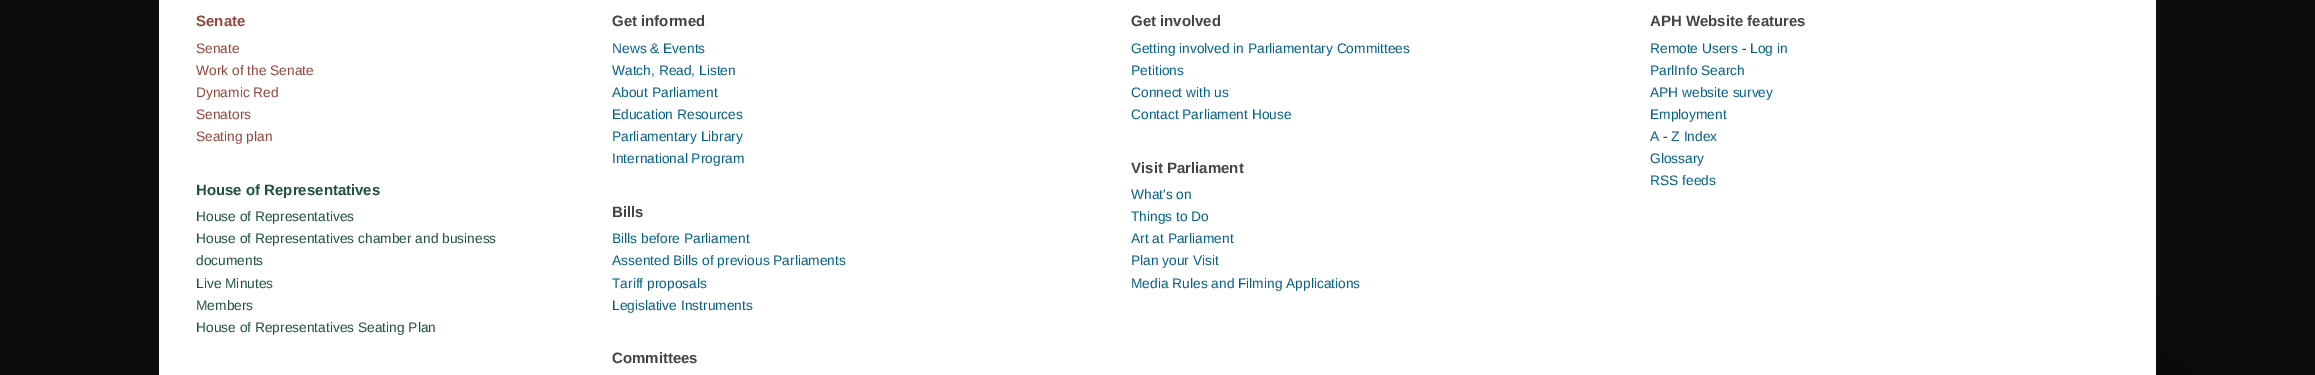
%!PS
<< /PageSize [2315 375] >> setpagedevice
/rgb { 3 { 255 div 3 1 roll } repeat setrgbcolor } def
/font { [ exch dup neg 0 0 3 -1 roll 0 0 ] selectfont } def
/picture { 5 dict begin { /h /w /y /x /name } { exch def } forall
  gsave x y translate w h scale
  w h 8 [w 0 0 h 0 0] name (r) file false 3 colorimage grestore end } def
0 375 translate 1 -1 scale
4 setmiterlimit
255 255 255 rgb
0 0 2315 375 rectfill
(img/1.rgb) 0 0 2315 375 picture
159 0 1997 375 rectfill
/LiberationSans-Bold 15 font
147 70 59 rgb
196 26 moveto (Senate) show
/LiberationSans-Regular 13.75 font
[
  [(Senate) 196 53]
  [(Work of the Senate) 196 75]
  [(Dynamic Red) 196 97]
  [(Senators) 196 119]
  [(Seating plan) 196 141]
] { aload pop moveto show } forall
/LiberationSans-Bold 15 font
30 82 62 rgb
196 195 moveto (House of Representatives) show
/LiberationSans-Regular 13.75 font
[
  [(House of Representatives) 196 221]
  [(House of Representatives chamber and business) 196 243]
  [(documents) 196 265]
  [(Live Minutes) 196 288]
  [(Members) 196 310]
  [(House of Representatives Seating Plan) 196 332]
] { aload pop moveto show } forall
/LiberationSans-Bold 15 font
68 68 68 rgb
612 26 moveto (Get informed) show
/LiberationSans-Regular 13.75 font
4 95 133 rgb
[
  [(News & Events) 612 53]
  [(Watch, Read, Listen) 612 75]
  [(About Parliament) 612 97]
  [(Education Resources) 612 119]
  [(Parliamentary Library) 612 141]
  [(International Program) 612 163]
] { aload pop moveto show } forall
/LiberationSans-Bold 15 font
68 68 68 rgb
612 217 moveto (Bills) show
/LiberationSans-Regular 13.75 font
4 95 133 rgb
[
  [(Bills before Parliament) 612 243]
  [(Assented Bills of previous Parliaments) 612 265]
  [(Tariff proposals) 612 288]
  [(Legislative Instruments) 612 310]
] { aload pop moveto show } forall
/LiberationSans-Bold 15 font
68 68 68 rgb
612 363 moveto (Committees) show
1131 26 moveto (Get involved) show
/LiberationSans-Regular 13.75 font
4 95 133 rgb
[
  [(Getting involved in Parliamentary Committees) 1131 53]
  [(Petitions) 1131 75]
  [(Connect with us) 1131 97]
  [(Contact Parliament House) 1131 119]
] { aload pop moveto show } forall
/LiberationSans-Bold 15 font
68 68 68 rgb
1131 173 moveto (Visit Parliament) show
/LiberationSans-Regular 13.75 font
4 95 133 rgb
[
  [(What's on) 1131 199]
  [(Things to Do) 1131 221]
  [(Art at Parliament) 1131 243]
  [(Plan your Visit) 1131 265]
  [(Media Rules and Filming Applications) 1131 288]
] { aload pop moveto show } forall
/LiberationSans-Bold 15 font
68 68 68 rgb
1650 26 moveto (APH Website features) show
/LiberationSans-Regular 13.75 font
4 95 133 rgb
[
  [(Remote Users - Log in) 1650 53]
  [(ParlInfo Search) 1650 75]
  [(APH website survey) 1650 97]
  [(Employment) 1650 119]
  [(A - Z Index) 1650 141]
  [(Glossary) 1650 163]
  [(RSS feeds) 1650 185]
] { aload pop moveto show } forall
showpage
